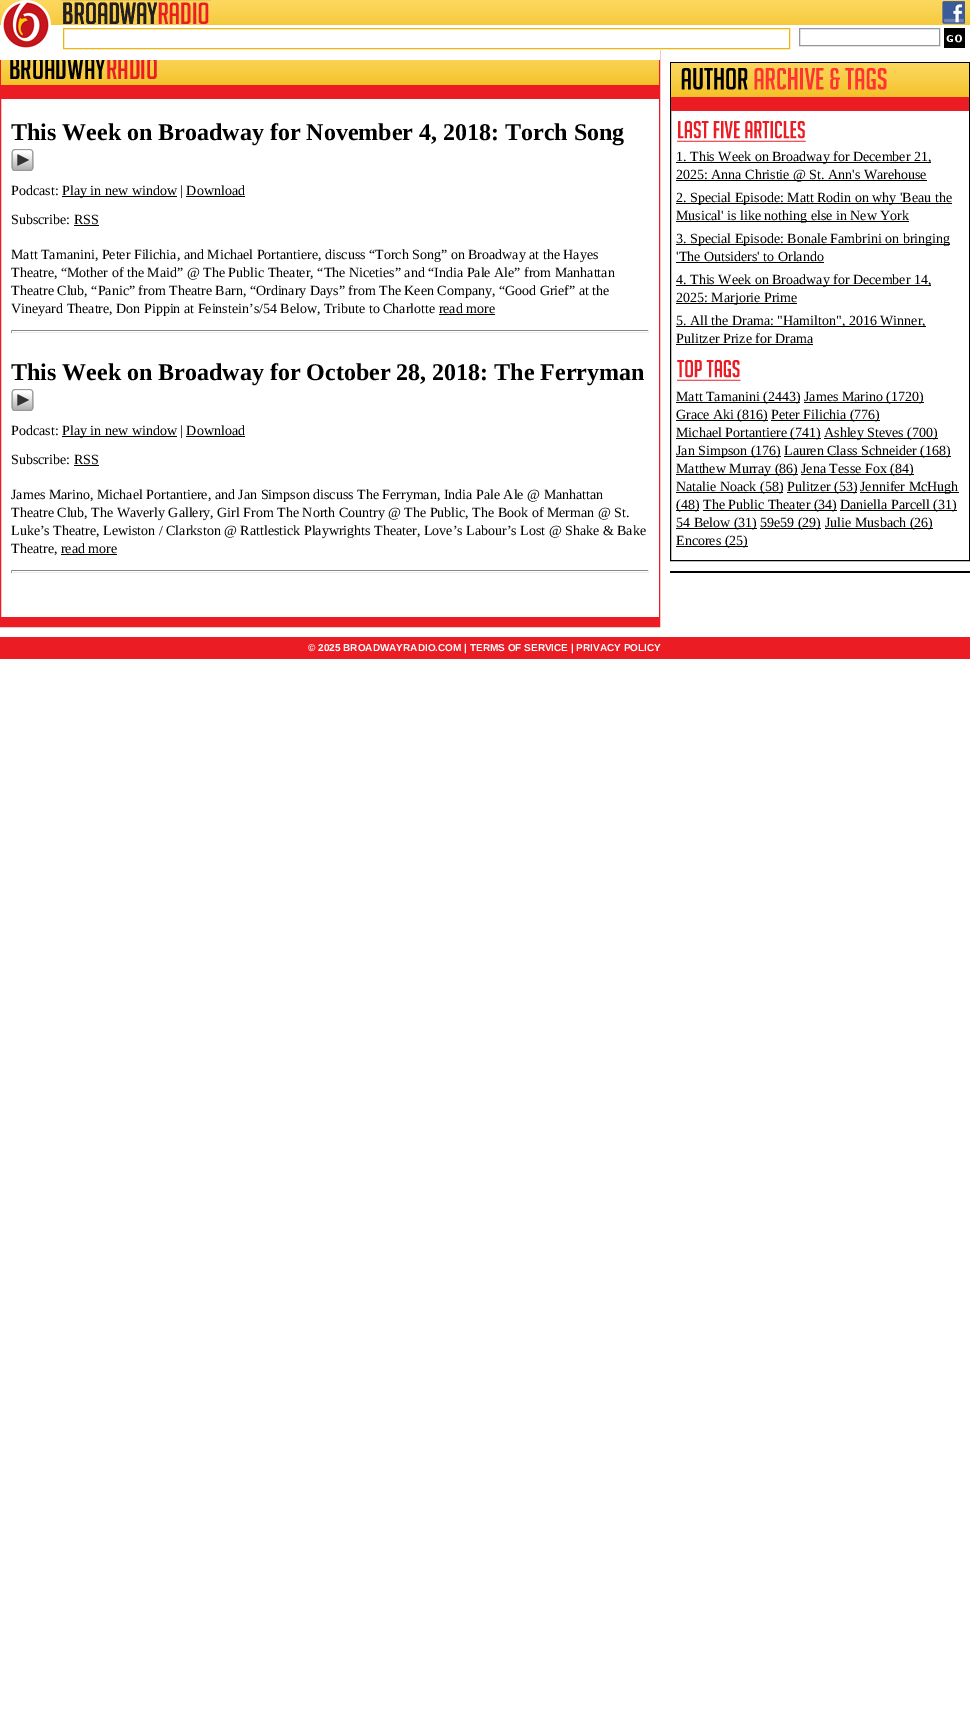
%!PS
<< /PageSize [970 1736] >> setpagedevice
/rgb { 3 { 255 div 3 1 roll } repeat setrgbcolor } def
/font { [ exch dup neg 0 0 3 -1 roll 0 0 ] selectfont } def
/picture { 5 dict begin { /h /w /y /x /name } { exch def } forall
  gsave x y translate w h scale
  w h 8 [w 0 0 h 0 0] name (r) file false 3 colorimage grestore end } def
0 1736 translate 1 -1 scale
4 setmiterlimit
255 255 255 rgb
0 0 970 1736 rectfill
(img/1.rgb) 0 0 970 25 picture
(img/2.rgb) 1 0 50 48 picture
(img/3.rgb) 61 0 150 25 picture
(img/4.rgb) 942 1 23 23 picture
240 182 16 rgb
63.5 28.5 726 20 rectstroke
146 151 155 rgb
799.5 28.5 140 17 rectstroke
(img/5.rgb) 944 28 21 20 picture
235 28 36 rgb
0.5 50.5 659 576 rectstroke
(img/6.rgb) 1 60 658 25 picture
1 85 658 14 rectfill
(img/7.rgb) 11 149 23 22 picture
[
  [62 196 115 1 0 0 0]
  [186 196 59 1 0 0 0]
  [74 225 25 1 0 0 0]
  [439 314 56 1 0 0 0]
  [11 330 638 1 136 136 136]
  [648 330 1 3 238 238 238]
  [11 332 638 1 238 238 238]
  [11 330 1 3 159 159 159]
] { aload pop rgb rectfill } forall
(img/7.rgb) 11 389 23 22 picture
[
  [62 436 115 1 0 0 0]
  [186 436 59 1 0 0 0]
  [74 465 25 1 0 0 0]
  [61 554 56 1 0 0 0]
  [11 570 638 1 136 136 136]
  [648 570 1 3 238 238 238]
  [11 572 638 1 238 238 238]
  [11 570 1 3 159 159 159]
  [1 617 658 9 235 28 36]
] { aload pop rgb rectfill } forall
0 0 0 rgb
670.5 62.5 299 498 rectstroke
(img/8.rgb) 671 63 298 34 picture
(img/9.rgb) 681 68 206 22 picture
235 28 36 rgb
671 97 298 14 rectfill
(img/10.rgb) 677 121 129 21 picture
[
  [676 162 255 1 0 0 0]
  [676 180 251 1 0 0 0]
  [676 203 276 1 0 0 0]
  [676 221 233 1 0 0 0]
  [676 244 274 1 0 0 0]
  [676 262 148 1 0 0 0]
  [676 285 255 1 0 0 0]
  [676 303 121 1 0 0 0]
  [676 326 250 1 0 0 0]
  [676 344 137 1 0 0 0]
] { aload pop rgb rectfill } forall
(img/11.rgb) 677 360 64 21 picture
[
  [676 402 124 1 0 0 0]
  [804 402 120 1 0 0 0]
  [676 420 92 1 0 0 0]
  [771 420 109 1 0 0 0]
  [676 438 145 1 0 0 0]
  [824 438 114 1 0 0 0]
  [676 456 105 1 0 0 0]
  [784 456 167 1 0 0 0]
  [676 474 122 1 0 0 0]
  [801 474 113 1 0 0 0]
  [676 492 107 1 0 0 0]
  [787 492 70 1 0 0 0]
  [860 492 99 1 0 0 0]
  [676 510 23 1 0 0 0]
  [703 510 134 1 0 0 0]
  [840 510 117 1 0 0 0]
  [676 528 81 1 0 0 0]
  [760 528 61 1 0 0 0]
  [825 528 108 1 0 0 0]
  [676 546 72 1 0 0 0]
  [670 571 300 2 0 0 0]
  [0 637 970 22 235 28 36]
] { aload pop rgb rectfill } forall
/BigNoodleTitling-Regular 30 font
0 0 0 rgb
9 79 moveto (BROADWAY) show
235 28 36 rgb
106 79 moveto (RADIO) show
255 255 255 rgb
0 50 660 10 rectfill
/LiberationSerif-Bold 24 font
0 0 0 rgb
11 140 moveto (This Week on Broadway for November 4, 2018: Torch Song) show
/LiberationSerif-Regular 14 font
[
  [(Podcast:) 11 195]
  [(Play in new window | Download) 62 195]
  [(Subscribe: RSS) 11 224]
  [(Matt Tamanini, Peter Filichia, and Michael Portantiere, discuss “Torch Song” on Broadway at the Hayes) 11 259]
  [(Theatre, “Mother of the Maid” @ The Public Theater, “The Niceties” and “India Pale Ale” from Manhattan) 11 277]
  [(Theatre Club, “Panic” from Theatre Barn, “Ordinary Days” from The Keen Company, “Good Grief” at the) 11 295]
  [(Vineyard Theatre, Don Pippin at Feinstein’s/54 Below, Tribute to Charlotte read more) 11 313]
] { aload pop moveto show } forall
/LiberationSerif-Bold 24 font
11 380 moveto (This Week on Broadway for October 28, 2018: The Ferryman) show
/LiberationSerif-Regular 14 font
[
  [(Podcast:) 11 435]
  [(Play in new window | Download) 62 435]
  [(Subscribe: RSS) 11 464]
  [(James Marino, Michael Portantiere, and Jan Simpson discuss The Ferryman, India Pale Ale @ Manhattan) 11 499]
  [(Theatre Club, The Waverly Gallery, Girl From The North Country @ The Public, The Book of Merman @ St.) 11 517]
  [(Luke’s Theatre, Lewiston / Clarkston @ Rattlestick Playwrights Theater, Love’s Labour’s Lost @ Shake & Bake) 11 535]
  [(Theatre, read more) 11 553]
  [(1. This Week on Broadway for December 21,) 676 161]
  [(2025: Anna Christie @ St. Ann's Warehouse) 676 179]
  [(2. Special Episode: Matt Rodin on why 'Beau the) 676 202]
  [(Musical' is like nothing else in New York) 676 220]
  [(3. Special Episode: Bonale Fambrini on bringing) 676 243]
  [('The Outsiders' to Orlando) 676 261]
  [(4. This Week on Broadway for December 14,) 676 284]
  [(2025: Marjorie Prime) 676 302]
  [(5. All the Drama: "Hamilton", 2016 Winner,) 676 325]
  [(Pulitzer Prize for Drama) 676 343]
  [(Matt Tamanini \(2443\)) 676 401]
  [(James Marino \(1720\)) 804 401]
  [(Grace Aki \(816\)) 676 419]
  [(Peter Filichia \(776\)) 771 419]
  [(Michael Portantiere \(741\)) 676 437]
  [(Ashley Steves \(700\)) 824 437]
  [(Jan Simpson \(176\)) 676 455]
  [(Lauren Class Schneider \(168\)) 784 455]
  [(Matthew Murray \(86\)) 676 473]
  [(Jena Tesse Fox \(84\)) 801 473]
  [(Natalie Noack \(58\)) 676 491]
  [(Pulitzer \(53\)) 787 491]
  [(Jennifer McHugh) 860 491]
  [(\(48\)) 676 509]
  [(The Public Theater \(34\)) 703 509]
  [(Daniella Parcell \(31\)) 840 509]
  [(54 Below \(31\)) 676 527]
  [(59e59 \(29\)) 760 527]
  [(Julie Musbach \(26\)) 825 527]
  [(Encores \(25\)) 676 545]
] { aload pop moveto show } forall
/LiberationSans-Bold 10 font
255 255 255 rgb
308 651 moveto (© 2025 BROADWAYRADIO.COM | TERMS OF SERVICE | PRIVACY POLICY) show
showpage
